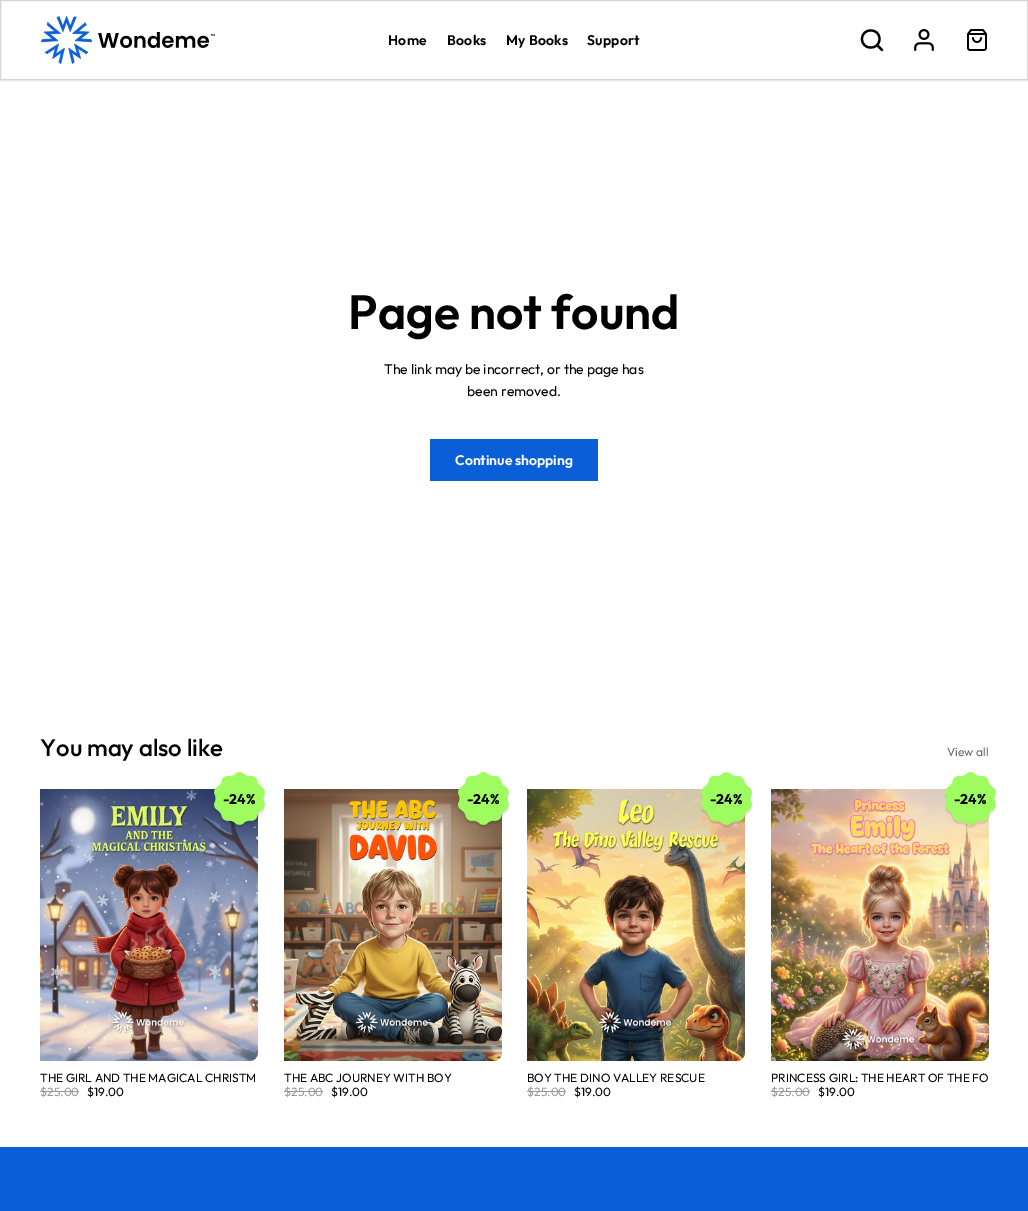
%!PS
<< /PageSize [1028 1211] /PageUsesTransparency true >> setpagedevice
/rgb { 3 { 255 div 3 1 roll } repeat setrgbcolor } def
/font { [ exch dup neg 0 0 3 -1 roll 0 0 ] selectfont } def
/alpha { dup .setfillconstantalpha .setstrokeconstantalpha } def
/roundrect { 5 dict begin { /r /h /w /y /x } { exch def } forall
  x r add y moveto x w add y 2 copy h add r arct x w add y h add x 1 index r arct
  x y h add x y r arct x y 2 copy exch w add exch r arct closepath end } def
/shadow { 12 dict begin { /a /b /q /h /w /y /x } { exch def } forall gsave /was 0 def
  9 -2 -9 { dup b mul 4 div /e exch def 1 sub .425 mul 2.718 exch exp 1 add a .99 .min exch div /now exch def
    1 1 now sub 1 was sub div sub alpha /was now def
    w h .min e 2 mul add 0 gt { x e sub y e sub w e 2 mul add h e 2 mul add
      q e add b .6 mul add w h .min 2 div e add .min 0 .max roundrect fill } if } for grestore end } def
/picture { 5 dict begin { /h /w /y /x /name } { exch def } forall
  gsave x y translate w h scale
  w h 8 [w 0 0 h 0 0] name (r) file false 3 colorimage grestore end } def
0 .pushpdf14devicefilter
0 1211 translate 1 -1 scale
4 setmiterlimit
255 255 255 rgb
0 0 1028 1211 rectfill
gsave
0 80 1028 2 rectclip
0 0 0 rgb
0 1 1028 80 0 1.5 0.1 shadow
grestore
214 214 214 rgb
0.5 0.5 1027 79 rectstroke
(img/1.rgb) 41 16 174 48 picture
0 0 0 rgb
2.2 setlinewidth
1 setlinecap
1 setlinejoin
882 50 moveto 877 45 lineto 879.5 39 moveto 879.5 50.5 862 50.5 862 39 curveto 862 27.5 879.5 27.5 879.5 39 curveto closepath stroke
(img/2.rgb) 914 29 20 22 picture
(img/3.rgb) 967 29 20 22 picture
10 94 216 rgb
430 439 168 42 rectfill
(img/5.rgb) 40 789 218 272 picture
(img/4.rgb) 214 772 51 56 picture
153 153 153 rgb
40 1091 39 1 rectfill
(img/7.rgb) 284 789 218 272 picture
(img/6.rgb) 458 772 51 56 picture
284 1091 39 1 rectfill
(img/9.rgb) 527 789 218 272 picture
(img/8.rgb) 701 772 51 56 picture
527 1091 39 1 rectfill
(img/11.rgb) 771 789 218 272 picture
(img/10.rgb) 945 772 51 56 picture
771 1091 39 1 rectfill
10 94 216 rgb
0 1147 1028 64 rectfill
/Outfit-SemiBold 14 font
0 0 0 rgb
388 45 moveto 0.25 0 (Home) ashow
447 45 moveto 0.25 0 (Books) ashow
506 45 moveto 0.25 0 (My Books) ashow
587 45 moveto 0.25 0 (Support) ashow
/Outfit-SemiBold 48 font
348 329 moveto (Page not found) show
/Outfit-Regular 14 font
384 374 moveto (The link may be incorrect, or the page has) show
467 396 moveto (been removed.) show
/Outfit-SemiBold 14 font
255 255 255 rgb
455 465 moveto (Continue shopping) show
/Outfit-Medium 24 font
0 0 0 rgb
40 756 moveto (You may also like) show
/Outfit-Regular 12 font
102 102 102 rgb
947 756 moveto (View all) show
/Outfit-Bold 14 font
0 0 0 rgb
223 804 moveto (-24%) show
/Outfit-Regular 12 font
40 1082 moveto (THE GIRL AND THE MAGICAL CHRISTM) show
153 153 153 rgb
40 1096 moveto ($25.00) show
0 0 0 rgb
87 1096 moveto ($19.00) show
/Outfit-Bold 14 font
467 804 moveto (-24%) show
/Outfit-Regular 12 font
284 1082 moveto (THE ABC JOURNEY WITH BOY) show
153 153 153 rgb
284 1096 moveto ($25.00) show
0 0 0 rgb
331 1096 moveto ($19.00) show
/Outfit-Bold 14 font
710 804 moveto (-24%) show
/Outfit-Regular 12 font
527 1082 moveto (BOY THE DINO VALLEY RESCUE) show
153 153 153 rgb
527 1096 moveto ($25.00) show
0 0 0 rgb
574 1096 moveto ($19.00) show
/Outfit-Bold 14 font
954 804 moveto (-24%) show
/Outfit-Regular 12 font
771 1082 moveto (PRINCESS GIRL: THE HEART OF THE FO) show
153 153 153 rgb
771 1096 moveto ($25.00) show
0 0 0 rgb
818 1096 moveto ($19.00) show
.poppdf14devicefilter showpage
